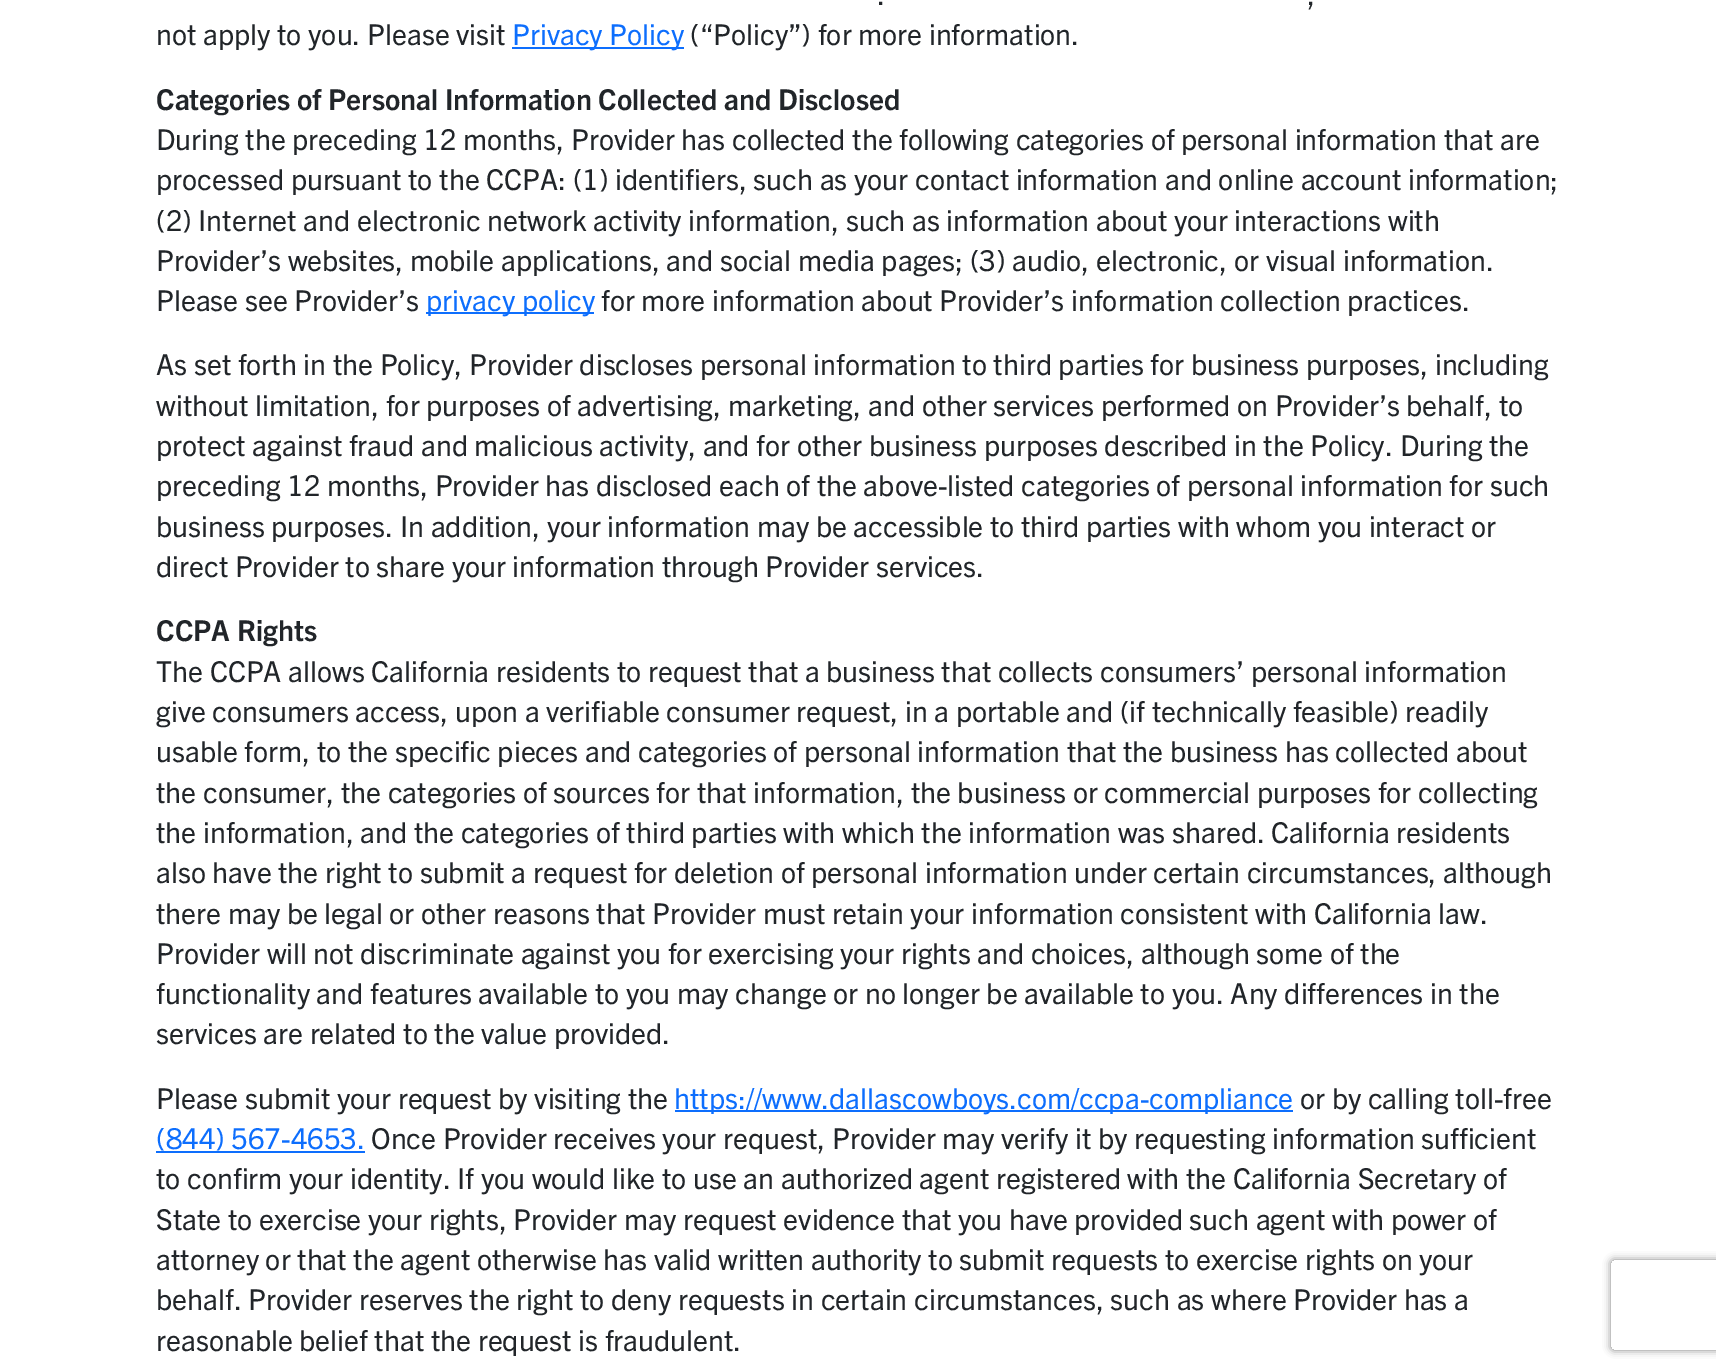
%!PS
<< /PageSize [1716 1371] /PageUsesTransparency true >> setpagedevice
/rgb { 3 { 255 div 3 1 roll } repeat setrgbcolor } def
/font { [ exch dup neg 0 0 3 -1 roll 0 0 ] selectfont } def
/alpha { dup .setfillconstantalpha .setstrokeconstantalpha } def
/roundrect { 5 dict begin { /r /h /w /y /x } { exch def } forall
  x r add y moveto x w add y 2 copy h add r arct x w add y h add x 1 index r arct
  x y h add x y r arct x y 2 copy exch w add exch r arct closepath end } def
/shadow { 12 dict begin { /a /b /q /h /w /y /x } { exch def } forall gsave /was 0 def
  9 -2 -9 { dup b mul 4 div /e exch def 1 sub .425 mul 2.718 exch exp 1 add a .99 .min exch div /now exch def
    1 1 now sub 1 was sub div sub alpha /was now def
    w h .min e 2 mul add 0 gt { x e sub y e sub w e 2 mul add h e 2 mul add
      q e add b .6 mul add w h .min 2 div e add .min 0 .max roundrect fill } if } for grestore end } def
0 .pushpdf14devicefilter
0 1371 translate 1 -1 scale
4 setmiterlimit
255 255 255 rgb
0 0 1716 1371 rectfill
[
  [512 47 172 2 13 110 253]
  [426 312 168 2 13 110 253]
  [675 1110 618 2 13 110 253]
  [156 1151 209 2 13 110 253]
] { aload pop rgb rectfill } forall
gsave
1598 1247 moveto 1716 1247 lineto 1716 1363 lineto 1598 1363 lineto closepath 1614 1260 moveto 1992 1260 lineto 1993.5 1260 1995 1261.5 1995 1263 curveto 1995 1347 lineto 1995 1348.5 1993.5 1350 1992 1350 curveto 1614 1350 lineto 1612.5 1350 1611 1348.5 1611 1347 curveto 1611 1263 lineto 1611 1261.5 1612.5 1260 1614 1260 curveto closepath eoclip newpath
128 128 128 rgb
1611 1260 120 90 3 4 1 shadow
grestore
/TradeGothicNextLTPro-Regular 28.8 font
33 37 41 rgb
[
  [(.) 877 5]
  [(,) 1307 5]
  [(not apply to you. Please visit) 156 45]
] { aload pop moveto show } forall
13 110 253 rgb
512 45 moveto (Privacy Policy) show
33 37 41 rgb
690 45 moveto (\(“Policy”\) for more information.) show
/TradeGothicNextLTPro-Bold 28.8 font
156 110 moveto (Categories of Personal Information Collected and Disclosed) show
/TradeGothicNextLTPro-Regular 28.8 font
[
  [(During the preceding 12 months, Provider has collected the following categories of personal information that are) 156 150]
  [(processed pursuant to the CCPA: \(1\) identifiers, such as your contact information and online account information;) 156 190]
  [(\(2\) Internet and electronic network activity information, such as information about your interactions with) 156 231]
  [(Provider’s websites, mobile applications, and social media pages; \(3\) audio, electronic, or visual information.) 156 271]
  [(Please see Provider’s) 156 311]
] { aload pop moveto show } forall
13 110 253 rgb
426 311 moveto (privacy policy) show
33 37 41 rgb
[
  [(for more information about Provider’s information collection practices.) 601 311]
  [(As set forth in the Policy, Provider discloses personal information to third parties for business purposes, including) 156 375]
  [(without limitation, for purposes of advertising, marketing, and other services performed on Provider’s behalf, to) 156 416]
  [(protect against fraud and malicious activity, and for other business purposes described in the Policy. During the) 156 456]
  [(preceding 12 months, Provider has disclosed each of the above-listed categories of personal information for such) 156 496]
  [(business purposes. In addition, your information may be accessible to third parties with whom you interact or) 156 537]
  [(direct Provider to share your information through Provider services.) 156 577]
] { aload pop moveto show } forall
/TradeGothicNextLTPro-Bold 28.8 font
156 641 moveto (CCPA Rights) show
/TradeGothicNextLTPro-Regular 28.8 font
[
  [(The CCPA allows California residents to request that a business that collects consumers’ personal information) 156 682]
  [(give consumers access, upon a verifiable consumer request, in a portable and \(if technically feasible\) readily) 156 722]
  [(usable form, to the specific pieces and categories of personal information that the business has collected about) 156 762]
  [(the consumer, the categories of sources for that information, the business or commercial purposes for collecting) 156 803]
  [(the information, and the categories of third parties with which the information was shared. California residents) 156 843]
  [(also have the right to submit a request for deletion of personal information under certain circumstances, although) 156 883]
  [(there may be legal or other reasons that Provider must retain your information consistent with California law.) 156 924]
  [(Provider will not discriminate against you for exercising your rights and choices, although some of the) 156 964]
  [(functionality and features available to you may change or no longer be available to you. Any differences in the) 156 1004]
  [(services are related to the value provided.) 156 1044]
  [(Please submit your request by visiting the) 156 1109]
] { aload pop moveto show } forall
13 110 253 rgb
674 1109 moveto (https://www.dallascowboys.com/ccpa-compliance) show
33 37 41 rgb
1300 1109 moveto (or by calling toll-free) show
13 110 253 rgb
156 1149 moveto (\(844\) 567-4653.) show
33 37 41 rgb
[
  [(Once Provider receives your request, Provider may verify it by requesting information sufficient) 371 1149]
  [(to confirm your identity. If you would like to use an authorized agent registered with the California Secretary of) 156 1189]
  [(State to exercise your rights, Provider may request evidence that you have provided such agent with power of) 156 1230]
  [(attorney or that the agent otherwise has valid written authority to submit requests to exercise rights on your) 156 1270]
  [(behalf. Provider reserves the right to deny requests in certain circumstances, such as where Provider has a) 156 1310]
  [(reasonable belief that the request is fraudulent.) 156 1351]
] { aload pop moveto show } forall
.poppdf14devicefilter showpage
